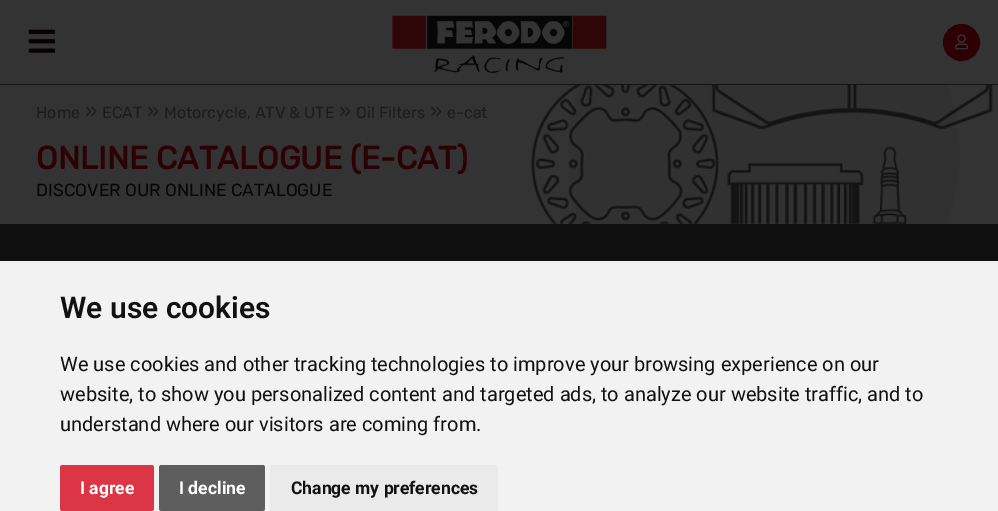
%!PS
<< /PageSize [998 511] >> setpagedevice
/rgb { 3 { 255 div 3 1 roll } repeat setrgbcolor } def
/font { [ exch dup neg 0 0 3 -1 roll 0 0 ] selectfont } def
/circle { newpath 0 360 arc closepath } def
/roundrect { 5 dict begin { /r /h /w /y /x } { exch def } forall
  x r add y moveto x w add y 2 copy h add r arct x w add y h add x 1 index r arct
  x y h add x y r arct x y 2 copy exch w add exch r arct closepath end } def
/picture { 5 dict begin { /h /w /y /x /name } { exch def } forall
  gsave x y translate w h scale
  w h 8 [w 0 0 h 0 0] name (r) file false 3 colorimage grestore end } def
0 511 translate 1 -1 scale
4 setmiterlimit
51 51 51 rgb
0 0 998 511 rectfill
(img/1.rgb) 28 29 27 24 picture
(img/2.rgb) 392 15 215 58 picture
45 0 5 rgb
961.5 42.5 18 circle gsave fill grestore
stroke
(img/3.rgb) 955 34 14 16 picture
19 19 19 rgb
0 84 998 1 rectfill
(img/4.rgb) 531 85 462 139 picture
15 15 15 rgb
0 224 998 37 rectfill
242 242 242 rgb
0 261 998 250 rectfill
220 53 69 rgb
60 465 94 46 2.5 roundrect fill
94 94 94 rgb
159 465 106 46 2.5 roundrect fill
234 234 234 rgb
270 465 228 46 2.5 roundrect fill
/Rubik-Light 16 font
28 28 28 rgb
36 118 moveto (Home) show
/Rubik-Light 20 font
85 118 moveto (») show
/Rubik-Light 16 font
102 118 moveto (ECAT) show
/Rubik-Light 20 font
147 118 moveto (») show
/Rubik-Light 16 font
164 118 moveto (Motorcycle, ATV & UTE) show
/Rubik-Light 20 font
339 118 moveto (») show
/Rubik-Light 16 font
356 118 moveto (Oil Filters) show
/Rubik-Light 20 font
430 118 moveto (») show
/Rubik-Light 16 font
447 118 moveto (e-cat) show
/Rubik-Bold 32 font
45 0 5 rgb
36 169 moveto (ONLINE CATALOGUE \(E-CAT\)) show
/Rubik-Light 17.5 font
7 7 8 rgb
36 196 moveto (DISCOVER OUR ONLINE CATALOGUE) show
/Roboto-SemiBold 30 font
17 17 17 rgb
60 318 moveto (We use cookies) show
/Roboto-Regular 20 font
[
  [(We use cookies and other tracking technologies to improve your browsing experience on our) 60 371]
  [(website, to show you personalized content and targeted ads, to analyze our website traffic, and to) 60 401]
  [(understand where our visitors are coming from.) 60 431]
] { aload pop moveto show } forall
/Roboto-Bold 17.5 font
255 255 255 rgb
80 494 moveto (I agree) show
179 494 moveto (I decline) show
17 17 17 rgb
291 494 moveto (Change my preferences) show
showpage
